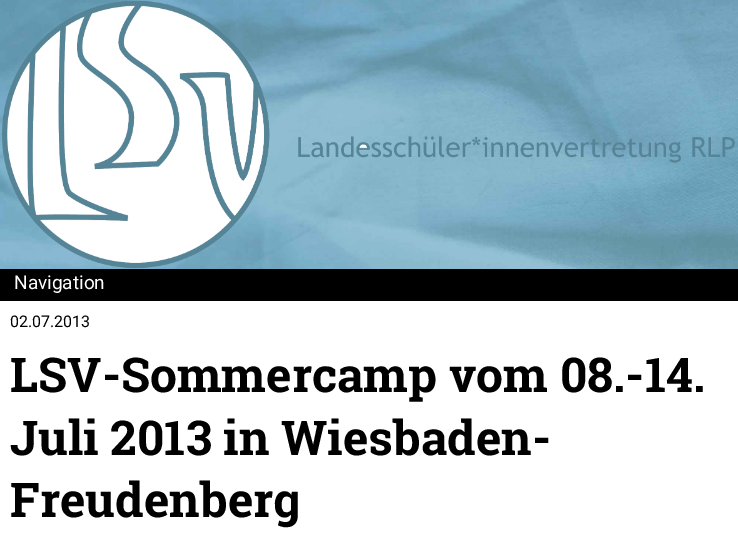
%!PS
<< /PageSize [738 541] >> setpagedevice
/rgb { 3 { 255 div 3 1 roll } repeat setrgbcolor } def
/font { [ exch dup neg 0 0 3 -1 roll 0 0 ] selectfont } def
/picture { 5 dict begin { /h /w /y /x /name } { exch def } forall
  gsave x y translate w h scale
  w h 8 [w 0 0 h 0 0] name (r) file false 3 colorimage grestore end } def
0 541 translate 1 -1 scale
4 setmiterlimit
255 255 255 rgb
0 0 738 541 rectfill
(img/1.rgb) 0 0 738 269 picture
(img/2.rgb) 2 0 733 269 picture
0 0 0 rgb
0 269 738 32 rectfill
/Roboto-Regular 19 font
255 255 255 rgb
14 289 moveto (Navigation) show
/Roboto-Regular 16 font
0 0 0 rgb
10 327 moveto (02.07.2013) show
/RobotoSlab-Bold 48 font
[
  [(LSV-Sommercamp vom 08.-14.) 10 392]
  [(Juli 2013 in Wiesbaden-) 10 455]
  [(Freudenberg) 10 517]
] { aload pop moveto show } forall
showpage
